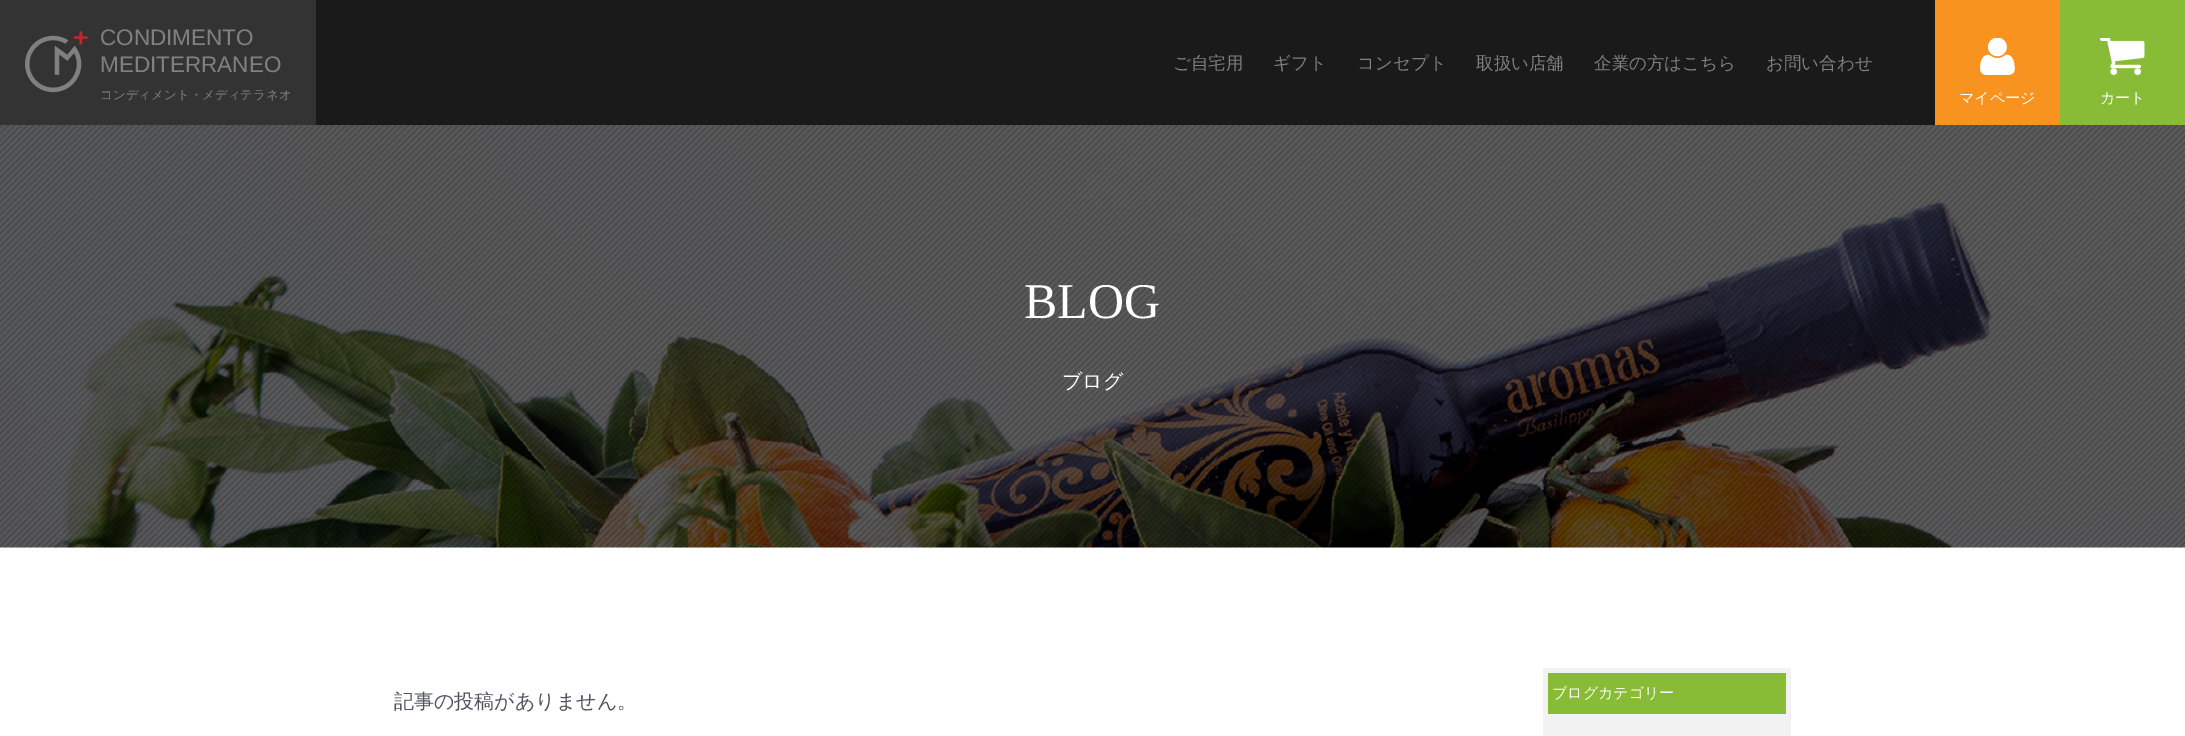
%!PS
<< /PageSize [2185 736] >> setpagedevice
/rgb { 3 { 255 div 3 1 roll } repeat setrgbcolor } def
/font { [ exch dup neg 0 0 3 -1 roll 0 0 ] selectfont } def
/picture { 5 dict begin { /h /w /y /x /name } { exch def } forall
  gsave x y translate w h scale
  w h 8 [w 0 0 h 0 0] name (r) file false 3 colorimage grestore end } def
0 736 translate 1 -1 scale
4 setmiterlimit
255 255 255 rgb
0 0 2185 736 rectfill
26 26 26 rgb
316 0 1619 125 rectfill
51 51 51 rgb
0 0 316 125 rectfill
(img/1.rgb) 25 31 63 62 picture
247 147 30 rgb
1935 0 125 125 rectfill
(img/2.rgb) 1980 38 35 37 picture
136 188 55 rgb
2060 0 125 125 rectfill
(img/3.rgb) 2100 38 45 37 picture
(img/4.rgb) 0 125 2185 423 picture
242 242 242 rgb
1543 668 248 68 rectfill
136 188 55 rgb
1548 673 238 41 rectfill
/LiberationSans-Regular 22.5 font
128 128 128 rgb
100 45 moveto (CONDIMENTO) show
100 72 moveto (MEDITERRANEO) show
/WenQuanYiZenHei-Medium 12.5 font
100 99 moveto (コンディメント・メディテラネオ) show
/WenQuanYiZenHei-Medium 17.5 font
[
  [(ご自宅用) 1173 69]
  [(ギフト) 1273 69]
  [(コンセプト) 1357 69]
  [(取扱い店舗) 1476 69]
  [(企業の方はこちら) 1594 69]
  [(お問い合わせ) 1766 69]
] { aload pop moveto show } forall
/WenQuanYiZenHei-Medium 15 font
255 255 255 rgb
1959 103 moveto (マイページ) show
2100 103 moveto (カート) show
/LiberationSerif-Regular 50 font
1024 318 moveto (BLOG) show
/WenQuanYiZenHei-Medium 20 font
1062 388 moveto (ブログ) show
82 82 99 rgb
394 708 moveto (記事の投稿がありません。) show
/WenQuanYiZenHei-Medium 15 font
255 255 255 rgb
1552 698 moveto (ブログカテゴリー) show
showpage
